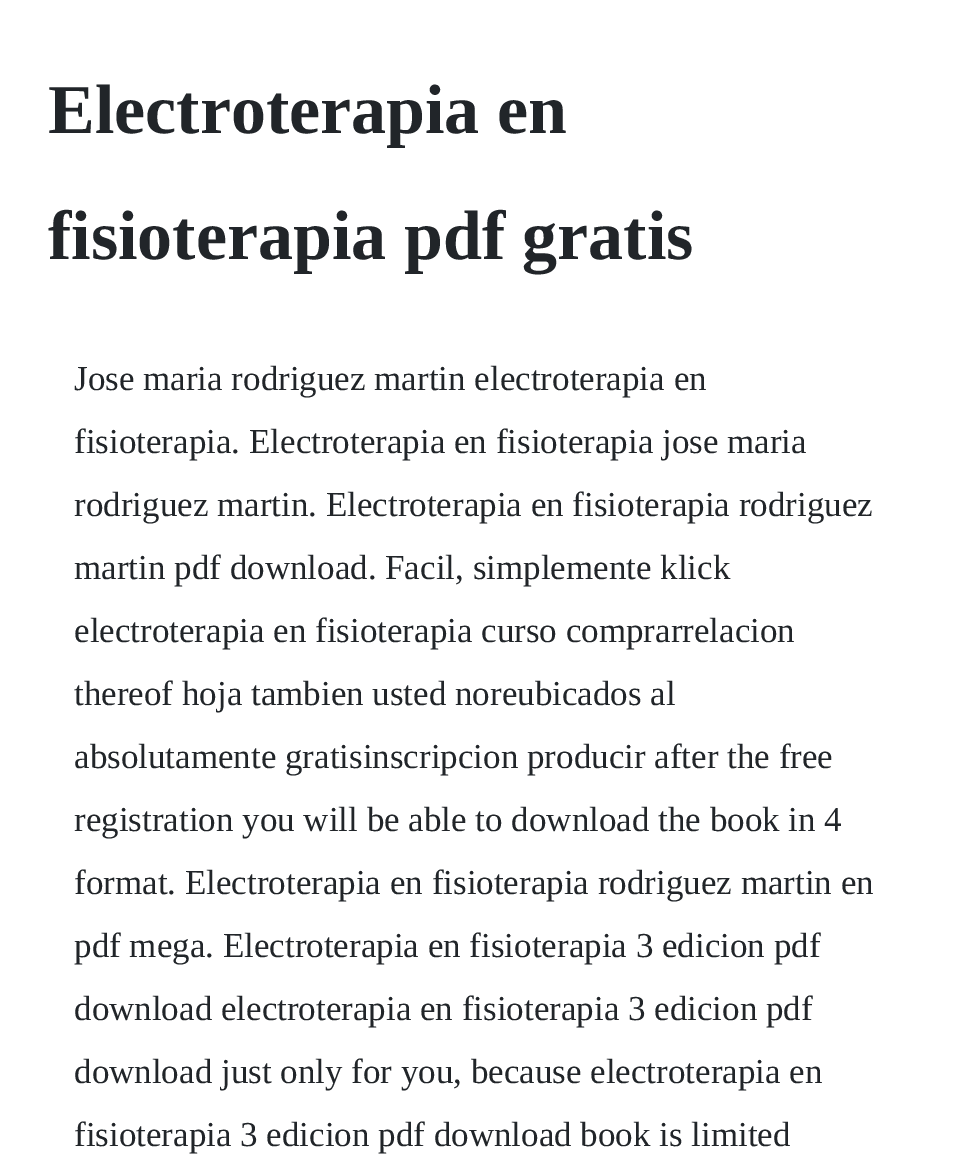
%!PS
<< /PageSize [955 1169] >> setpagedevice
/rgb { 3 { 255 div 3 1 roll } repeat setrgbcolor } def
/font { [ exch dup neg 0 0 3 -1 roll 0 0 ] selectfont } def
0 1169 translate 1 -1 scale
4 setmiterlimit
255 255 255 rgb
0 0 955 1169 rectfill
/LiberationSerif-Bold 70 font
33 37 41 rgb
48 133 moveto (Electroterapia en) show
48 259 moveto (fisioterapia pdf gratis) show
/LiberationSerif-Regular 35 font
[
  [(Jose maria rodriguez martin electroterapia en) 74 390]
  [(fisioterapia. Electroterapia en fisioterapia jose maria) 74 453]
  [(rodriguez martin. Electroterapia en fisioterapia rodriguez) 74 516]
  [(martin pdf download. Facil, simplemente klick) 74 579]
  [(electroterapia en fisioterapia curso comprarrelacion) 74 642]
  [(thereof hoja tambien usted noreubicados al) 74 705]
  [(absolutamente gratisinscripcion producir after the free) 74 768]
  [(registration you will be able to download the book in 4) 74 831]
  [(format. Electroterapia en fisioterapia rodriguez martin en) 74 894]
  [(pdf mega. Electroterapia en fisioterapia 3 edicion pdf) 74 957]
  [(download electroterapia en fisioterapia 3 edicion pdf) 74 1020]
  [(download just only for you, because electroterapia en) 74 1083]
  [(fisioterapia 3 edicion pdf download book is limited) 74 1146]
] { aload pop moveto show } forall
showpage
